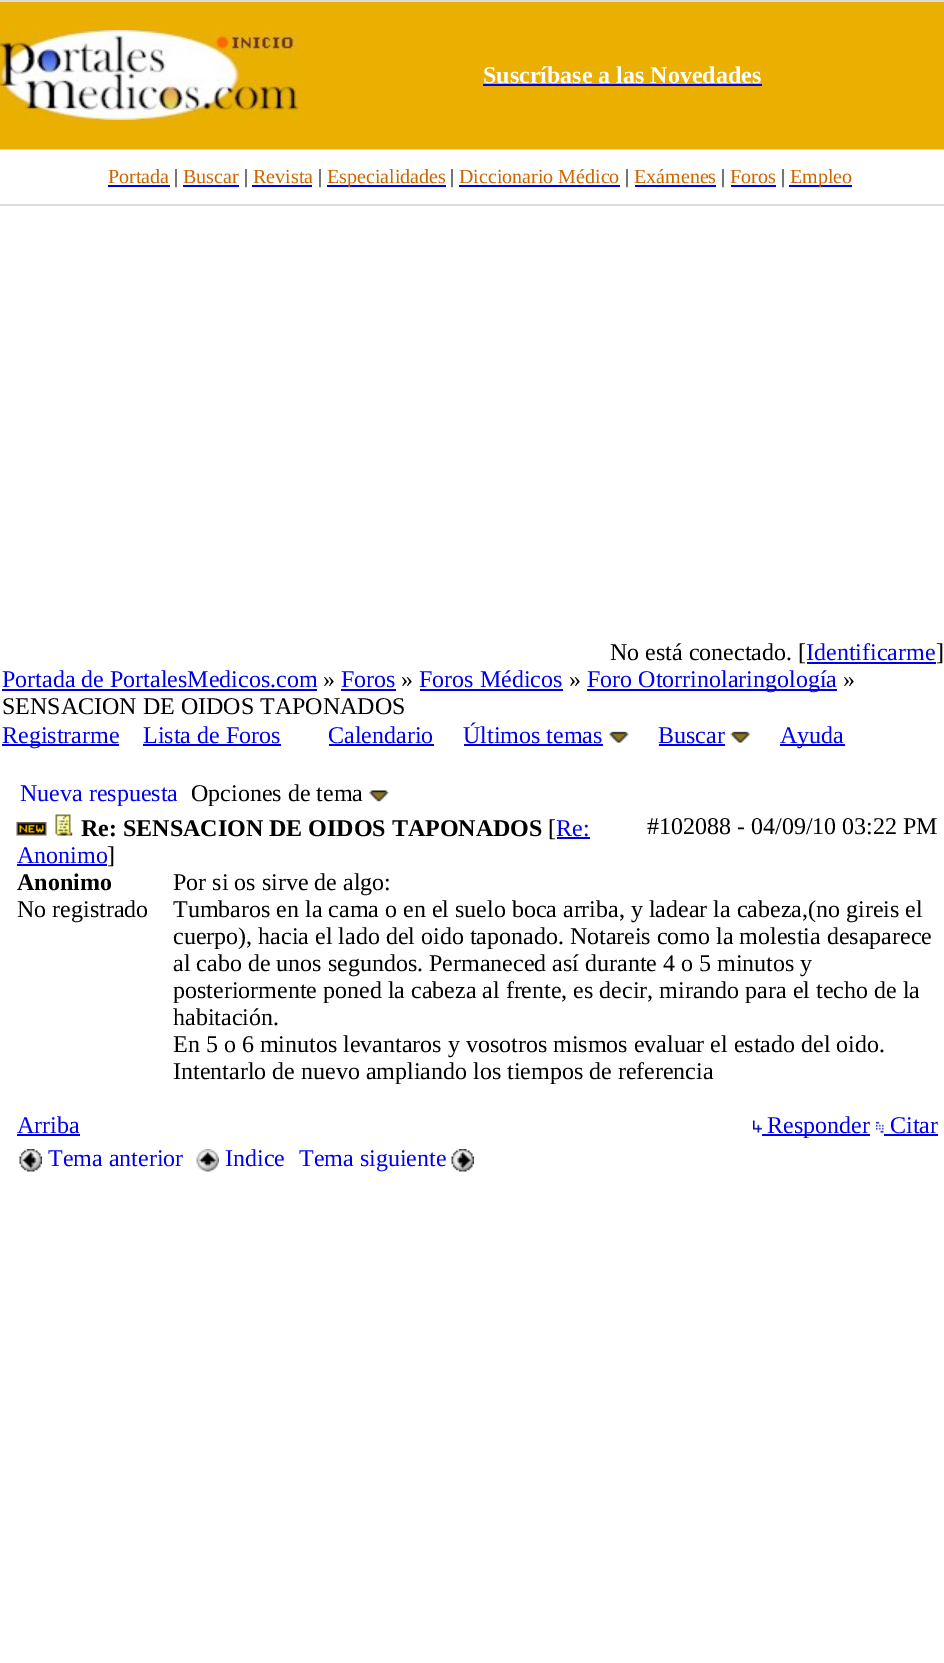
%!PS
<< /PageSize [944 1663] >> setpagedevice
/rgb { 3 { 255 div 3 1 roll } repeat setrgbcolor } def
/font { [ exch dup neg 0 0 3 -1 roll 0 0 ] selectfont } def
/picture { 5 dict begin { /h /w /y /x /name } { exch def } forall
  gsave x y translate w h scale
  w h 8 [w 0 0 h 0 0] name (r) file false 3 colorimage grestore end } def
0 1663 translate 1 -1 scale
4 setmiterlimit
255 255 255 rgb
0 0 944 1663 rectfill
[
  [0 2 944 147 234 175 0]
  [0 0 944 2 217 220 223]
  [0 149 944 1 217 220 223]
] { aload pop rgb rectfill } forall
(img/1.rgb) 0 30 300 90 picture
[
  [483 84 279 2 0 0 238]
  [0 204 944 2 217 220 223]
  [108 185 62 2 0 0 238]
  [183 185 56 2 0 0 238]
  [252 185 60 2 0 0 238]
  [327 185 119 2 0 0 238]
  [459 185 161 2 0 0 238]
  [635 185 81 2 0 0 238]
  [731 185 45 2 0 0 238]
  [789 185 63 2 0 0 238]
  [807 662 129 2 0 0 238]
  [2 689 315 2 0 0 238]
  [341 689 55 2 0 0 238]
  [420 689 143 2 0 0 238]
  [587 689 250 2 0 0 238]
  [2 744 117 2 0 0 238]
  [143 744 138 2 0 0 238]
  [329 744 105 2 0 0 238]
  [464 744 139 2 0 0 238]
] { aload pop rgb rectfill } forall
(img/2.rgb) 609 731 20 12 picture
659 744 66 2 rectfill
(img/3.rgb) 730 731 20 12 picture
780 744 65 2 rectfill
(img/4.rgb) 369 790 20 12 picture
(img/5.rgb) 16 822 31 14 picture
(img/6.rgb) 55 814 18 22 picture
[
  [557 837 33 2 0 0 238]
  [17 864 90 2 0 0 238]
  [17 1134 63 2 0 0 238]
] { aload pop rgb rectfill } forall
(img/7.rgb) 753 1120 9 13 picture
762 1134 108 2 rectfill
(img/8.rgb) 876 1121 8 12 picture
884 1134 54 2 rectfill
(img/9.rgb) 19 1149 23 23 picture
(img/10.rgb) 196 1149 23 23 picture
(img/11.rgb) 451 1149 23 23 picture
/LiberationSerif-Bold 24 font
255 255 255 rgb
483 83 moveto (Suscríbase a las Novedades) show
/LiberationSerif-Regular 20 font
204 102 0 rgb
108 183 moveto (Portada) show
0 0 0 rgb
174 183 moveto (|) show
204 102 0 rgb
183 183 moveto (Buscar) show
0 0 0 rgb
244 183 moveto (|) show
204 102 0 rgb
253 183 moveto (Revista) show
0 0 0 rgb
318 183 moveto (|) show
204 102 0 rgb
327 183 moveto (Especialidades) show
0 0 0 rgb
450 183 moveto (|) show
204 102 0 rgb
459 183 moveto (Diccionario Médico) show
0 0 0 rgb
625 183 moveto (|) show
204 102 0 rgb
634 183 moveto (Exámenes) show
0 0 0 rgb
721 183 moveto (|) show
204 102 0 rgb
730 183 moveto (Foros) show
0 0 0 rgb
781 183 moveto (|) show
204 102 0 rgb
790 183 moveto (Empleo) show
/LiberationSerif-Regular 24 font
0 0 0 rgb
610 660 moveto (No está conectado. [) show
0 0 238 rgb
806 660 moveto (Identificarme) show
0 0 0 rgb
936 660 moveto (]) show
0 0 238 rgb
2 687 moveto (Portada de PortalesMedicos.com) show
0 0 0 rgb
323 687 moveto (») show
0 0 238 rgb
341 687 moveto (Foros) show
0 0 0 rgb
401 687 moveto (») show
0 0 238 rgb
419 687 moveto (Foros Médicos) show
0 0 0 rgb
569 687 moveto (») show
0 0 238 rgb
587 687 moveto (Foro Otorrinolaringología) show
0 0 0 rgb
843 687 moveto (») show
2 714 moveto (SENSACION DE OIDOS TAPONADOS) show
0 0 238 rgb
[
  [(Registrarme) 2 743]
  [(Lista de Foros) 143 743]
  [(Calendario) 328 743]
  [(Últimos temas) 463 743]
  [(Buscar) 658 743]
  [(Ayuda) 780 743]
  [(Nueva respuesta) 20 801]
] { aload pop moveto show } forall
0 0 0 rgb
191 801 moveto (Opciones de tema) show
/LiberationSerif-Bold 24 font
81 836 moveto (Re: SENSACION DE OIDOS TAPONADOS) show
/LiberationSerif-Regular 24 font
548 836 moveto ([) show
0 0 238 rgb
556 836 moveto (Re:) show
0 0 0 rgb
647 834 moveto (#102088 - 04/09/10 03:22 PM) show
0 0 238 rgb
17 863 moveto (Anonimo) show
0 0 0 rgb
107 863 moveto (]) show
/LiberationSerif-Bold 24 font
17 890 moveto (Anonimo) show
/LiberationSerif-Regular 24 font
[
  [(No registrado) 17 917]
  [(Por si os sirve de algo:) 173 890]
  [(Tumbaros en la cama o en el suelo boca arriba, y ladear la cabeza,\(no gireis el) 173 917]
  [(cuerpo\), hacia el lado del oido taponado. Notareis como la molestia desaparece) 173 944]
  [(al cabo de unos segundos. Permaneced así durante 4 o 5 minutos y) 173 971]
  [(posteriormente poned la cabeza al frente, es decir, mirando para el techo de la) 173 998]
  [(habitación.) 173 1025]
  [(En 5 o 6 minutos levantaros y vosotros mismos evaluar el estado del oido.) 173 1052]
  [(Intentarlo de nuevo ampliando los tiempos de referencia) 173 1079]
] { aload pop moveto show } forall
0 0 238 rgb
[
  [(Arriba) 17 1133]
  [(Responder) 767 1133]
  [(Citar) 890 1133]
  [(Tema anterior) 48 1166]
  [(Indice) 225 1166]
  [(Tema siguiente) 299 1166]
] { aload pop moveto show } forall
showpage
